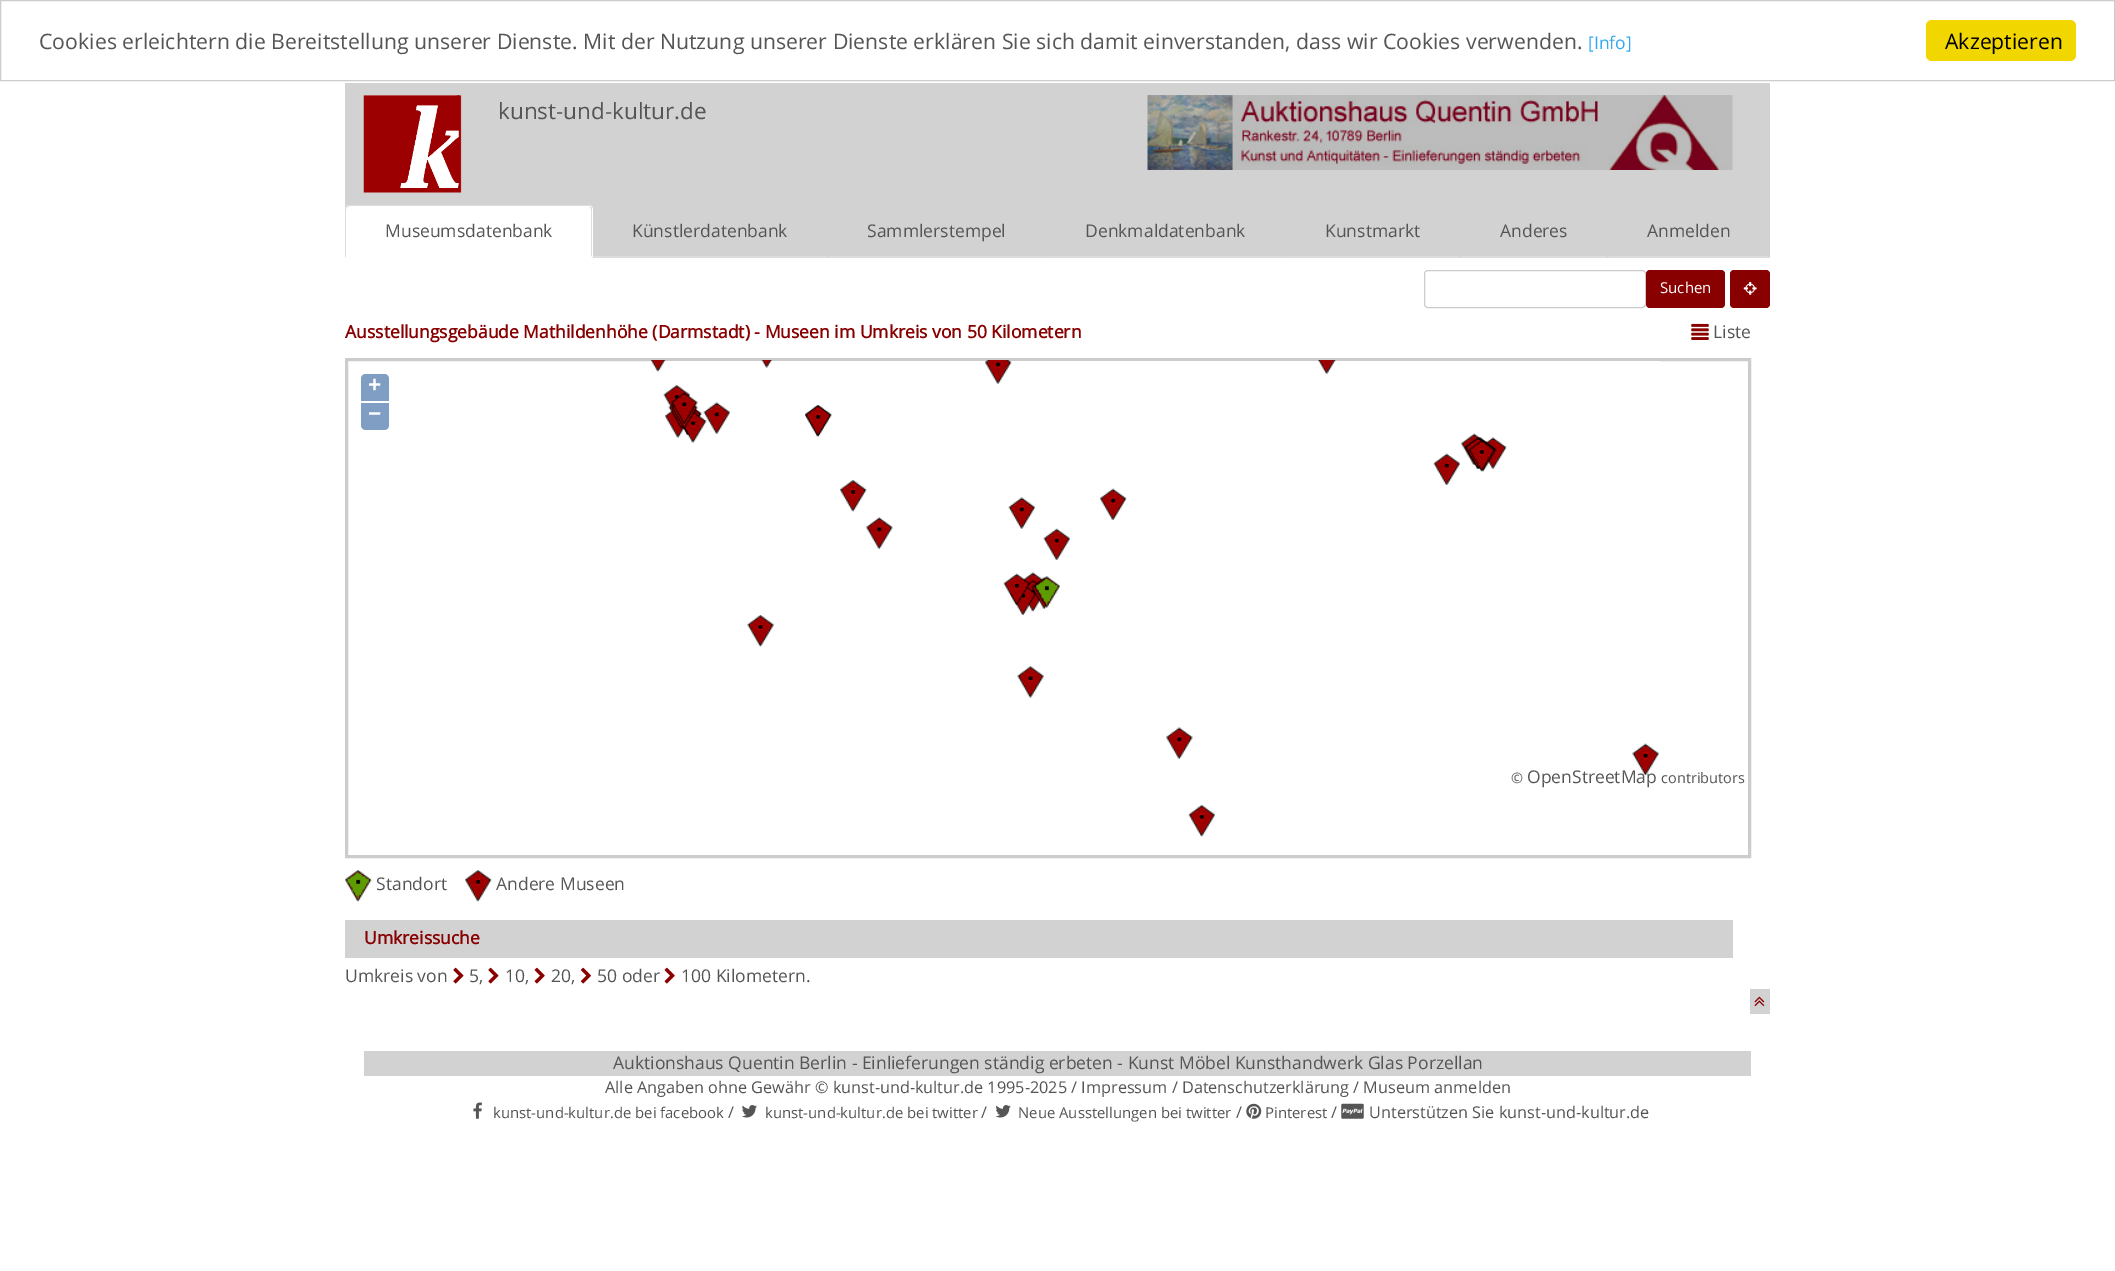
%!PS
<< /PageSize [2115 1271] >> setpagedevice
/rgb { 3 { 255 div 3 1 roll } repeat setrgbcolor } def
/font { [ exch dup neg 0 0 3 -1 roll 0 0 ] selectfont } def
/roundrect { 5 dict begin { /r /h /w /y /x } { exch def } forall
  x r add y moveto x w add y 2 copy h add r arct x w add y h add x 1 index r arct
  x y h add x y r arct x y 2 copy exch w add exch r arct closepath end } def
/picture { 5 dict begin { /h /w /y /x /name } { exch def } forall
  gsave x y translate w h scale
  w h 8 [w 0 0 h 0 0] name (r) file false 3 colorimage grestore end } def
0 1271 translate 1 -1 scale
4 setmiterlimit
255 255 255 rgb
0 0 2115 1271 rectfill
204 204 204 rgb
0.5 0.5 2114 80 rectstroke
241 214 0 rgb
1926 20 150 41 6 roundrect fill
210 210 210 rgb
345 83 1425 175 rectfill
(img/1.rgb) 363 95 99 98 picture
(img/2.rgb) 1147 95 586 75 picture
255 255 255 rgb
350 205 moveto 588 205 lineto 591 205 593 207 593 210 curveto 593 258 lineto 345 258 lineto 345 210 lineto 345 207 347 205 350 205 curveto closepath fill
221 221 221 rgb
350 205 moveto 348 205 347 206 346 206 curveto 347 207 lineto 350 206 lineto 589 206 lineto 590 207 lineto 591 207 lineto 590 206 589 205 588 205 curveto closepath fill
591 207 moveto 592 207 592 209 592 210 curveto 592 257 lineto 591 256 lineto 591 210 lineto 590 207 lineto closepath fill
255 255 255 rgb
592 258 moveto 345 258 lineto 346 256 lineto 591 256 lineto closepath fill
221 221 221 rgb
345 258 moveto 346 256 lineto 346 210 lineto 346 209 346 208 347 207 curveto 346 206 lineto 346 207 345 208 345 210 curveto closepath fill
828 258 moveto 826 256 lineto 594 256 lineto 592 258 lineto closepath fill
1045 258 moveto 828 258 lineto 829 256 lineto 1044 256 lineto closepath fill
1285 258 moveto 1045 258 lineto 1046 256 lineto 1284 256 lineto closepath fill
1460 258 moveto 1285 258 lineto 1286 256 lineto 1458 256 lineto closepath fill
1608 258 moveto 1606 256 lineto 1462 256 lineto 1460 258 lineto closepath fill
1770 258 moveto 1608 258 lineto 1609 256 lineto 1768 256 lineto closepath fill
204 204 204 rgb
1424.5 270.5 221 37 3.5 roundrect stroke
136 0 0 rgb
1646 270 79 38 4 roundrect fill
1730 270 40 38 4 roundrect fill
(img/3.rgb) 1743 281 14 14 picture
(img/4.rgb) 1691 323 18 17 picture
204 204 204 rgb
3 setlinewidth
346.5 359.5 1403 497 rectstroke
128 158 196 rgb
366 374 moveto 384 374 lineto 387 374 389 376 389 379 curveto 389 401 lineto 361 401 lineto 361 379 lineto 361 376 363 374 366 374 curveto closepath fill
361 403 moveto 389 403 lineto 389 425 lineto 389 428 387 430 384 430 curveto 366 430 lineto 363 430 361 428 361 425 curveto closepath fill
(img/5.rgb) 650 360 1009 477 picture
(img/6.rgb) 345 870 27 32 picture
(img/7.rgb) 465 870 27 32 picture
210 210 210 rgb
345 920 1388 38 rectfill
(img/8.rgb) 453 967 11 17 picture
(img/8.rgb) 488 967 11 17 picture
(img/9.rgb) 534 967 11 17 picture
(img/10.rgb) 580 967 11 17 picture
(img/9.rgb) 664 967 11 17 picture
1750 989 20 25 rectfill
(img/11.rgb) 1754 996 11 11 picture
364 1051 1387 25 rectfill
(img/12.rgb) 473 1102 9 17 picture
(img/13.rgb) 741 1105 16 13 picture
(img/14.rgb) 995 1105 16 13 picture
(img/15.rgb) 1246 1103 16 16 picture
(img/16.rgb) 1341 1103 23 16 picture
/OpenSans-Regular 21.25 font
85 85 85 rgb
39 49 moveto (Cookies erleichtern die Bereitstellung unserer Dienste. Mit der Nutzung unserer Dienste erklären Sie sich damit einverstanden, dass wir Cookies verwenden.) show
/OpenSans-Regular 17.5 font
49 168 240 rgb
1588 49 moveto ([Info]) show
/OpenSans-Regular 21.25 font
0 0 0 rgb
1945 49 moveto (Akzeptieren) show
/OpenSans-Regular 22.5 font
85 85 85 rgb
498 119 moveto (kunst-und-kultur.de) show
/OpenSans-Regular 17.5 font
[
  [(Museumsdatenbank) 385 237]
  [(Künstlerdatenbank) 632 237]
  [(Sammlerstempel) 867 237]
  [(Denkmaldatenbank) 1085 237]
  [(Kunstmarkt) 1325 237]
  [(Anderes) 1500 237]
  [(Anmelden) 1647 237]
] { aload pop moveto show } forall
/OpenSans-Regular 15 font
255 255 255 rgb
1660 293 moveto (Suchen) show
/OpenSans-Bold 17.5 font
136 0 0 rgb
345 338 moveto (Ausstellungsgebäude Mathildenhöhe \(Darmstadt\) - Museen im Umkreis von 50 Kilometern) show
/OpenSans-Regular 17.5 font
85 85 85 rgb
1713 338 moveto (Liste) show
/LiberationSans-Bold 22.5 font
255 255 255 rgb
368 392 moveto (+) show
368 421 moveto (−) show
/OpenSans-Regular 14.5 font
85 85 85 rgb
1511 783 moveto (©) show
/OpenSans-Regular 17.5 font
1527 783 moveto (OpenStreetMap) show
/OpenSans-Regular 14.5 font
1661 783 moveto (contributors) show
/OpenSans-Regular 17.5 font
376 890 moveto (Standort) show
496 890 moveto (Andere Museen) show
/OpenSans-Bold 17.5 font
136 0 0 rgb
364 944 moveto (Umkreissuche) show
/OpenSans-Regular 17.5 font
85 85 85 rgb
[
  [(Umkreis von) 345 982]
  [(5,) 469 982]
  [(10,) 505 982]
  [(20,) 551 982]
  [(50 oder) 597 982]
  [(100 Kilometern.) 681 982]
  [(Auktionshaus Quentin Berlin - Einlieferungen ständig erbeten - Kunst Möbel Kunsthandwerk Glas Porzellan) 613 1069]
] { aload pop moveto show } forall
/OpenSans-Regular 16.25 font
605 1093 moveto (Alle Angaben ohne Gewähr © kunst-und-kultur.de 1995-2025 / Impressum / Datenschutzerklärung / Museum anmelden) show
/OpenSans-Regular 14.9 font
493 1118 moveto (kunst-und-kultur.de bei facebook) show
/OpenSans-Regular 16.25 font
728 1118 moveto (/) show
/OpenSans-Regular 14.9 font
765 1118 moveto (kunst-und-kultur.de bei twitter) show
/OpenSans-Regular 16.25 font
981 1118 moveto (/) show
/OpenSans-Regular 14.9 font
1018 1118 moveto (Neue Ausstellungen bei twitter) show
/OpenSans-Regular 16.25 font
1236 1118 moveto (/) show
/OpenSans-Regular 14.9 font
1265 1118 moveto (Pinterest) show
/OpenSans-Regular 16.25 font
1331 1118 moveto (/) show
1369 1118 moveto (Unterstützen Sie kunst-und-kultur.de) show
showpage
